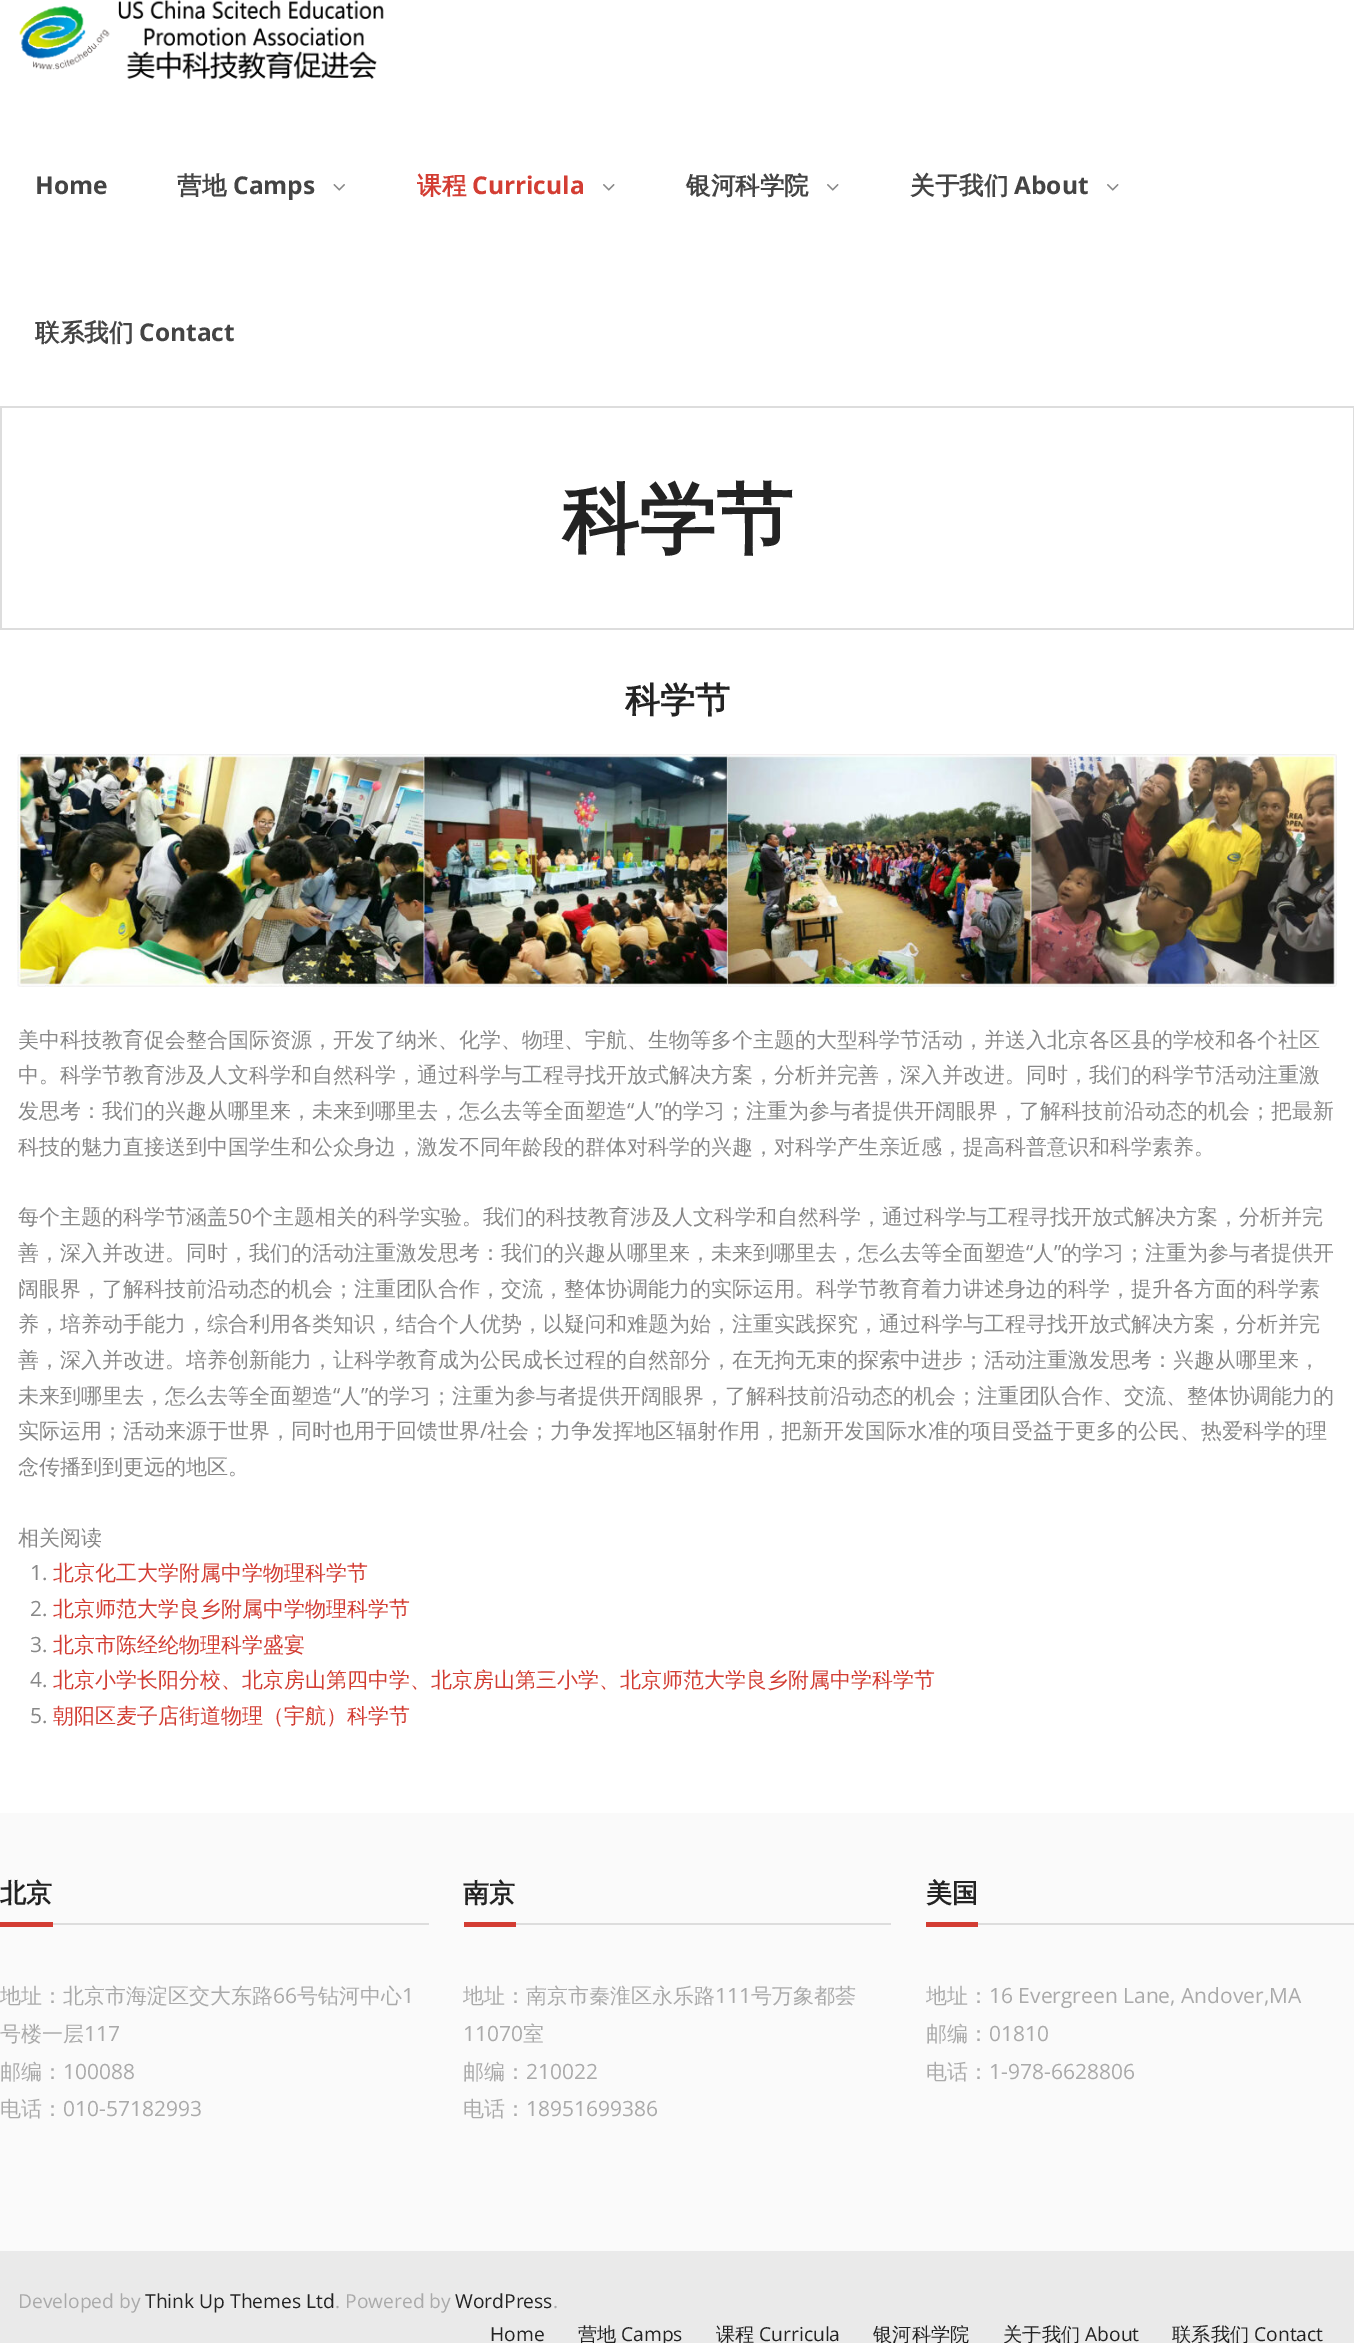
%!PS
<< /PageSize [1354 2343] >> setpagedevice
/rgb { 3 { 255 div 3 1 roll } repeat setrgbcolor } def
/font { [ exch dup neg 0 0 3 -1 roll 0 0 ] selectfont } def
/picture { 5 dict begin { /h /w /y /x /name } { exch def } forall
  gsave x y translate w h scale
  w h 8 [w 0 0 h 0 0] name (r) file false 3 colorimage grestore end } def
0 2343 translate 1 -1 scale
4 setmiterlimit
255 255 255 rgb
0 0 1354 2343 rectfill
221 221 221 rgb
0 406 1354 2 rectfill
(img/1.rgb) 19 0 365 79 picture
(img/2.rgb) 333 184 12 7 picture
(img/3.rgb) 603 184 12 7 picture
(img/3.rgb) 827 184 12 7 picture
(img/3.rgb) 1107 184 12 7 picture
[
  [1353 408 1 222 221 221 221]
  [0 628 1354 2 221 221 221]
  [0 408 2 222 221 221 221]
] { aload pop rgb rectfill } forall
(img/4.rgb) 17 754 1320 233 picture
[
  [0 1813 1354 438 250 250 250]
  [53 1923 376 2 221 221 221]
  [0 1922 53 5 211 61 51]
  [516 1923 375 2 221 221 221]
  [464 1922 52 5 211 61 51]
  [978 1923 376 2 221 221 221]
  [926 1922 52 5 211 61 51]
  [0 2251 1354 92 234 234 234]
] { aload pop rgb rectfill } forall
/OpenSans-Bold 24.5 font
68 68 68 rgb
35 194 moveto (Home) show
/WenQuanYiZenHei-Bold 24.5 font
177 194 moveto (营地) show
/OpenSans-Bold 24.5 font
233 194 moveto (Camps) show
/WenQuanYiZenHei-Bold 24.5 font
211 61 51 rgb
417 194 moveto (课程) show
/OpenSans-Bold 24.5 font
472 194 moveto (Curricula) show
/WenQuanYiZenHei-Bold 24.5 font
68 68 68 rgb
686 194 moveto (银河科学院) show
910 194 moveto (关于我们) show
/OpenSans-Bold 24.5 font
1014 194 moveto (About) show
/WenQuanYiZenHei-Bold 24.5 font
35 341 moveto (联系我们) show
/OpenSans-Bold 24.5 font
139 341 moveto (Contact) show
/WenQuanYiZenHei-Bold 77 font
35 35 35 rgb
562 546 moveto (科学节) show
/WenQuanYiZenHei-Bold 35 font
625 712 moveto (科学节) show
/WenQuanYiZenHei-Medium 21 font
136 136 136 rgb
[
  [(美中科技教育促会整合国际资源，开发了纳米、化学、物理、宇航、生物等多个主题的大型科学节活动，并送入北京各区县的学校和各个社区) 18 1047]
  [(中。科学节教育涉及人文科学和自然科学，通过科学与工程寻找开放式解决方案，分析并完善，深入并改进。同时，我们的科学节活动注重激) 18 1082]
  [(发思考：我们的兴趣从哪里来，未来到哪里去，怎么去等全面塑造) 18 1118]
] { aload pop moveto show } forall
/OpenSans-Regular 21 font
627 1118 moveto (“) show
/WenQuanYiZenHei-Medium 21 font
634 1118 moveto (人) show
/OpenSans-Regular 21 font
655 1118 moveto (”) show
/WenQuanYiZenHei-Medium 21 font
[
  [(的学习；注重为参与者提供开阔眼界，了解科技前沿动态的机会；把最新) 662 1118]
  [(科技的魅力直接送到中国学生和公众身边，激发不同年龄段的群体对科学的兴趣，对科学产生亲近感，提高科普意识和科学素养。) 18 1154]
  [(每个主题的科学节涵盖) 18 1224]
] { aload pop moveto show } forall
/OpenSans-Regular 21 font
228 1224 moveto (50) show
/WenQuanYiZenHei-Medium 21 font
252 1224 moveto (个主题相关的科学实验。我们的科技教育涉及人文科学和自然科学，通过科学与工程寻找开放式解决方案，分析并完) show
18 1260 moveto (善，深入并改进。同时，我们的活动注重激发思考：我们的兴趣从哪里来，未来到哪里去，怎么去等全面塑造) show
/OpenSans-Regular 21 font
1026 1260 moveto (“) show
/WenQuanYiZenHei-Medium 21 font
1033 1260 moveto (人) show
/OpenSans-Regular 21 font
1054 1260 moveto (”) show
/WenQuanYiZenHei-Medium 21 font
[
  [(的学习；注重为参与者提供开) 1061 1260]
  [(阔眼界，了解科技前沿动态的机会；注重团队合作，交流，整体协调能力的实际运用。科学节教育着力讲述身边的科学，提升各方面的科学素) 18 1296]
  [(养，培养动手能力，综合利用各类知识，结合个人优势，以疑问和难题为始，注重实践探究，通过科学与工程寻找开放式解决方案，分析并完) 18 1331]
  [(善，深入并改进。培养创新能力，让科学教育成为公民成长过程的自然部分，在无拘无束的探索中进步；活动注重激发思考：兴趣从哪里来，) 18 1367]
  [(未来到哪里去，怎么去等全面塑造) 18 1403]
] { aload pop moveto show } forall
/OpenSans-Regular 21 font
333 1403 moveto (“) show
/WenQuanYiZenHei-Medium 21 font
340 1403 moveto (人) show
/OpenSans-Regular 21 font
361 1403 moveto (”) show
/WenQuanYiZenHei-Medium 21 font
368 1403 moveto (的学习；注重为参与者提供开阔眼界，了解科技前沿动态的机会；注重团队合作、交流、整体协调能力的) show
18 1438 moveto (实际运用；活动来源于世界，同时也用于回馈世界) show
/OpenSans-Regular 21 font
480 1438 moveto (/) show
/WenQuanYiZenHei-Medium 21 font
[
  [(社会；力争发挥地区辐射作用，把新开发国际水准的项目受益于更多的公民、热爱科学的理) 487 1438]
  [(念传播到到更远的地区。) 18 1474]
  [(相关阅读) 18 1545]
] { aload pop moveto show } forall
/OpenSans-Regular 21 font
30 1580 moveto (1.) show
/WenQuanYiZenHei-Medium 21 font
211 61 51 rgb
53 1580 moveto (北京化工大学附属中学物理科学节) show
/OpenSans-Regular 21 font
136 136 136 rgb
30 1616 moveto (2.) show
/WenQuanYiZenHei-Medium 21 font
211 61 51 rgb
53 1616 moveto (北京师范大学良乡附属中学物理科学节) show
/OpenSans-Regular 21 font
136 136 136 rgb
30 1652 moveto (3.) show
/WenQuanYiZenHei-Medium 21 font
211 61 51 rgb
53 1652 moveto (北京市陈经纶物理科学盛宴) show
/OpenSans-Regular 21 font
136 136 136 rgb
30 1687 moveto (4.) show
/WenQuanYiZenHei-Medium 21 font
211 61 51 rgb
53 1687 moveto (北京小学长阳分校、北京房山第四中学、北京房山第三小学、北京师范大学良乡附属中学科学节) show
/OpenSans-Regular 21 font
136 136 136 rgb
30 1723 moveto (5.) show
/WenQuanYiZenHei-Medium 21 font
211 61 51 rgb
53 1723 moveto (朝阳区麦子店街道物理（宇航）科学节) show
/WenQuanYiZenHei-Bold 26 font
35 35 35 rgb
0 1902 moveto (北京) show
/WenQuanYiZenHei-Medium 21 font
170 170 170 rgb
0 2003 moveto (地址：北京市海淀区交大东路) show
/OpenSans-Regular 21 font
273 2003 moveto (66) show
/WenQuanYiZenHei-Medium 21 font
297 2003 moveto (号钻河中心) show
/OpenSans-Regular 21 font
402 2003 moveto (1) show
/WenQuanYiZenHei-Medium 21 font
0 2041 moveto (号楼一层) show
/OpenSans-Regular 21 font
84 2041 moveto (117) show
/WenQuanYiZenHei-Medium 21 font
0 2079 moveto (邮编：) show
/OpenSans-Regular 21 font
63 2079 moveto (100088) show
/WenQuanYiZenHei-Medium 21 font
0 2116 moveto (电话：) show
/OpenSans-Regular 21 font
63 2116 moveto (010-57182993) show
/WenQuanYiZenHei-Bold 26 font
35 35 35 rgb
463 1902 moveto (南京) show
/WenQuanYiZenHei-Medium 21 font
170 170 170 rgb
463 2003 moveto (地址：南京市秦淮区永乐路) show
/OpenSans-Regular 21 font
715 2003 moveto (111) show
/WenQuanYiZenHei-Medium 21 font
751 2003 moveto (号万象都荟) show
/OpenSans-Regular 21 font
463 2041 moveto (11070) show
/WenQuanYiZenHei-Medium 21 font
523 2041 moveto (室) show
463 2079 moveto (邮编：) show
/OpenSans-Regular 21 font
526 2079 moveto (210022) show
/WenQuanYiZenHei-Medium 21 font
463 2116 moveto (电话：) show
/OpenSans-Regular 21 font
526 2116 moveto (18951699386) show
/WenQuanYiZenHei-Bold 26 font
35 35 35 rgb
926 1902 moveto (美国) show
/WenQuanYiZenHei-Medium 21 font
170 170 170 rgb
926 2003 moveto (地址：) show
/OpenSans-Regular 21 font
989 2003 moveto (16 Evergreen Lane, Andover,MA) show
/WenQuanYiZenHei-Medium 21 font
926 2041 moveto (邮编：) show
/OpenSans-Regular 21 font
989 2041 moveto (01810) show
/WenQuanYiZenHei-Medium 21 font
926 2079 moveto (电话：) show
/OpenSans-Regular 21 font
989 2079 moveto (1-978-6628806) show
/OpenSans-Regular 19.25 font
18 2308 moveto (Developed by) show
35 35 35 rgb
145 2308 moveto (Think Up Themes Ltd) show
170 170 170 rgb
335 2308 moveto (. Powered by) show
35 35 35 rgb
455 2308 moveto (WordPress) show
170 170 170 rgb
553 2308 moveto (.) show
35 35 35 rgb
490 2341 moveto (Home) show
/WenQuanYiZenHei-Medium 19.25 font
578 2341 moveto (营地) show
/OpenSans-Regular 19.25 font
621 2341 moveto (Camps) show
/WenQuanYiZenHei-Medium 19.25 font
716 2341 moveto (课程) show
/OpenSans-Regular 19.25 font
759 2341 moveto (Curricula) show
/WenQuanYiZenHei-Medium 19.25 font
873 2341 moveto (银河科学院) show
1003 2341 moveto (关于我们) show
/OpenSans-Regular 19.25 font
1085 2341 moveto (About) show
/WenQuanYiZenHei-Medium 19.25 font
1172 2341 moveto (联系我们) show
/OpenSans-Regular 19.25 font
1254 2341 moveto (Contact) show
showpage
